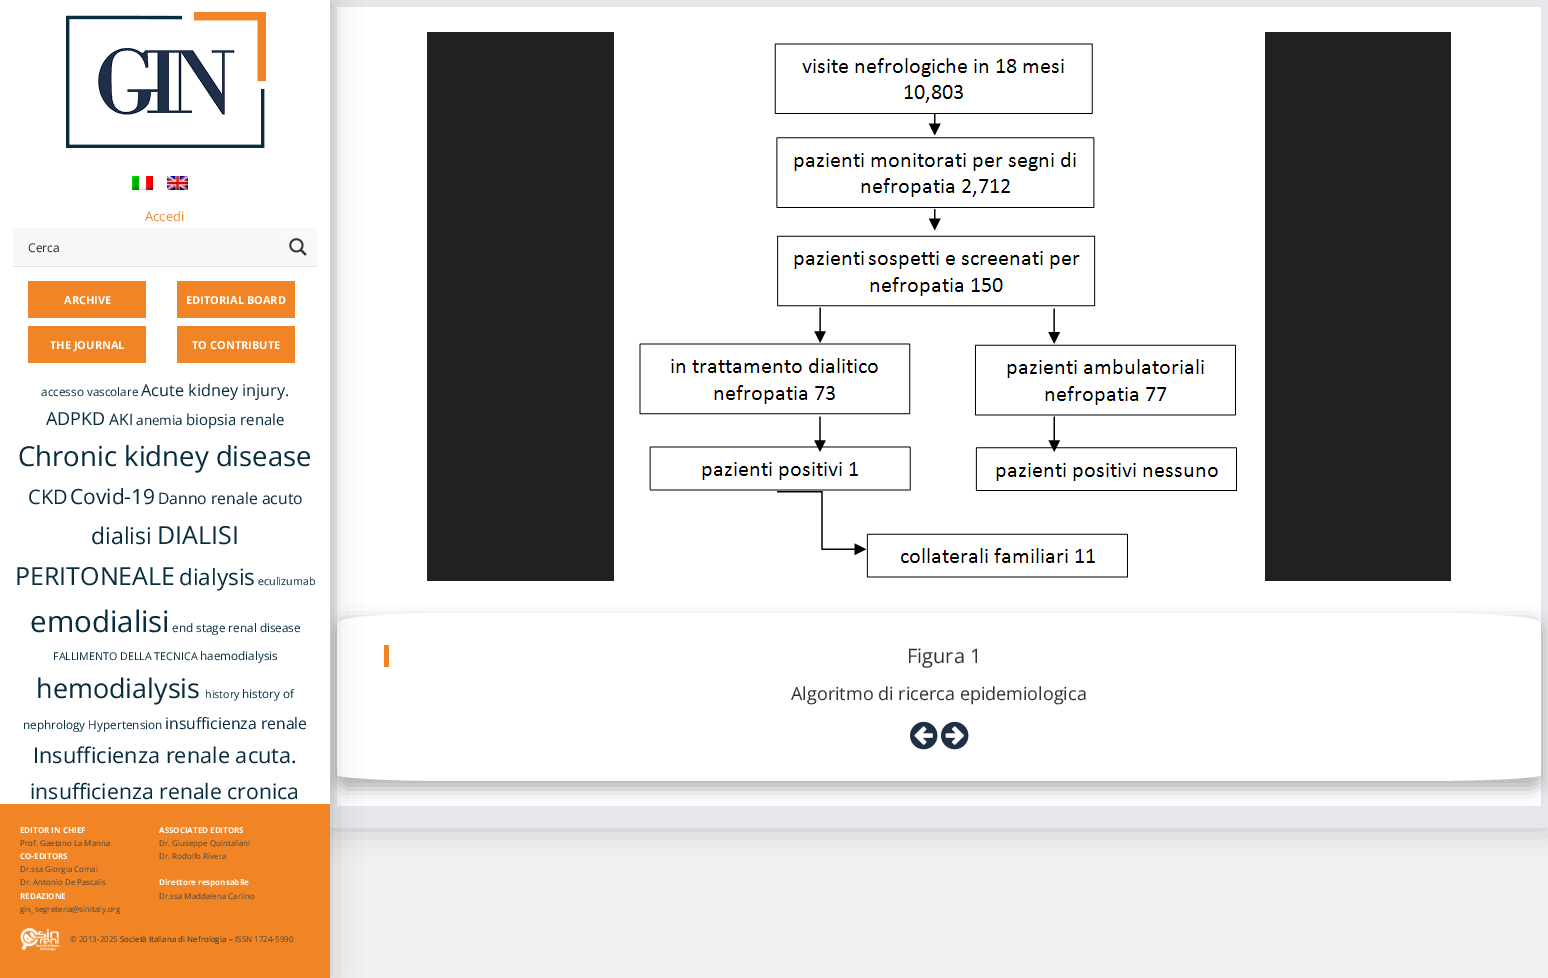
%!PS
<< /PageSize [1548 978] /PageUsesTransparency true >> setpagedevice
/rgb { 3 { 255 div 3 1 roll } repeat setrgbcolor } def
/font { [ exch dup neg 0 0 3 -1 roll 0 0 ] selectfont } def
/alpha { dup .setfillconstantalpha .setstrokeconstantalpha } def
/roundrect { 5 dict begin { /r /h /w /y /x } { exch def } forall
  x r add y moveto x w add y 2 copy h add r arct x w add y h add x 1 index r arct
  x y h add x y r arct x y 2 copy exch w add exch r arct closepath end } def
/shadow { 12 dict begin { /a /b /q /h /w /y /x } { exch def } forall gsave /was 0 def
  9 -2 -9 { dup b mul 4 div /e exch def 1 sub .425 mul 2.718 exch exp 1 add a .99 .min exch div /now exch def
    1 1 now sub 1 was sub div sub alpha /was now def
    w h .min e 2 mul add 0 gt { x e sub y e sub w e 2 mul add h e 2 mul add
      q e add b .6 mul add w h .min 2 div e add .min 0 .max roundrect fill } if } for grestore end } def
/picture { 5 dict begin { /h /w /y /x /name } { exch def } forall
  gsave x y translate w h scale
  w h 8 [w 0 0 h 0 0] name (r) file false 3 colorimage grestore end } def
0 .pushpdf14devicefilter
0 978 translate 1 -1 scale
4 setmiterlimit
241 241 241 rgb
0 0 1548 978 rectfill
0 0 0 rgb
330 0 1218 828 0 15 0.2 shadow
229 231 234 rgb
330 0 1218 828 rectfill
255 255 255 rgb
337 7 1204 799 rectfill
0 0 0 rgb
337 621 1204 168 10 8 0.3 shadow
255 255 255 rgb
457 613 moveto 1421 613 lineto 1487 613 1541 617 1541 623 curveto 1541 775 lineto 1541 778 1487 781 1421 781 curveto 457 781 lineto 391 781 337 778 337 775 curveto 337 623 lineto 337 617 391 613 457 613 curveto closepath fill
0 0 0 rgb
0 0 330 978 0 15 0.2 shadow
255 255 255 rgb
0 0 330 804 rectfill
(img/1.rgb) 66 12 200 136 picture
(img/2.rgb) 132 176 21 14 picture
(img/3.rgb) 167 176 21 14 picture
228 228 228 rgb
13 266 304 1 rectfill
248 248 248 rgb
13 228 304 38 rectfill
gsave
283 232 30 30 rectclip
252 252 252 rgb
184 133 moveto 412 133 lineto 412 361 lineto 184 361 lineto closepath 282 233 moveto 312 233 lineto 312 263 lineto 282 263 lineto closepath eofill
grestore
(img/4.rgb) 289 238 18 18 picture
[
  [28 281 118 37 241 133 37]
  [177 281 118 37 241 133 37]
  [28 326 118 37 241 133 37]
  [177 326 118 37 241 133 37]
  [0 804 330 174 241 133 37]
] { aload pop rgb rectfill } forall
(img/5.rgb) 20 927 40 24 picture
33 33 33 rgb
427 32 1024 549 rectfill
(img/6.rgb) 614 32 651 549 picture
241 133 37 rgb
384 645 5 22 rectfill
(img/7.rgb) 910 721 28 29 picture
(img/8.rgb) 941 721 28 29 picture
/OpenSans-Regular 13 font
145 221 moveto (Accedi) show
/OpenSans-Regular 12 font
37 37 37 rgb
28 252 moveto (Cerca) show
/OpenSans-Bold 11 font
255 255 255 rgb
[
  [(ARCHIVE) 64 304]
  [(EDITORIAL BOARD) 186 304]
  [(THE JOURNAL) 50 349]
  [(TO CONTRIBUTE) 192 349]
] { aload pop moveto show } forall
/OpenSans-Regular 11.75 font
8 45 62 rgb
41 396 moveto (accesso vascolare) show
/OpenSans-Regular 16.25 font
141 396 moveto (Acute kidney injury.) show
/OpenSans-Regular 18 font
46 425 moveto (ADPKD) show
/OpenSans-Regular 15.75 font
109 425 moveto (AKI) show
/OpenSans-Regular 13.5 font
136 425 moveto (anemia) show
/OpenSans-Regular 15 font
186 425 moveto (biopsia renale) show
/OpenSans-Regular 27.5 font
18 466 moveto (Chronic kidney disease) show
/OpenSans-Regular 20 font
28 504 moveto (CKD) show
/OpenSans-Regular 21 font
70 504 moveto (Covid-19) show
/OpenSans-Regular 15.75 font
158 504 moveto (Danno renale acuto) show
/OpenSans-Regular 23 font
91 544 moveto (dialisi) show
/OpenSans-Regular 25 font
157 544 moveto (DIALISI) show
15 585 moveto (PERITONEALE) show
/OpenSans-Regular 22.5 font
179 585 moveto (dialysis) show
/OpenSans-Regular 10.7 font
258 585 moveto (eculizumab) show
/OpenSans-Regular 29.5 font
30 632 moveto (emodialisi) show
/OpenSans-Regular 11.75 font
172 632 moveto (end stage renal disease) show
/OpenSans-Regular 10.7 font
53 660 moveto (FALLIMENTO DELLA TECNICA) show
/OpenSans-Regular 11.75 font
200 660 moveto (haemodialysis) show
/OpenSans-Regular 27 font
36 698 moveto (hemodialysis) show
/OpenSans-Regular 10.7 font
205 698 moveto (history) show
/OpenSans-Regular 11.75 font
242 698 moveto (history of) show
23 729 moveto (nephrology Hypertension) show
/OpenSans-Regular 15.75 font
165 729 moveto (insufficienza renale) show
/OpenSans-Regular 21.75 font
33 763 moveto (Insufficienza renale acuta.) show
/OpenSans-Regular 21.25 font
30 799 moveto (insufficienza renale cronica) show
/OpenSans-Bold 8 font
255 255 255 rgb
20 833 moveto (EDITOR IN CHIEF) show
/OpenSans-Regular 8 font
68 68 68 rgb
20 846 moveto (Prof. Gaetano La Manna) show
/OpenSans-Bold 8 font
255 255 255 rgb
20 859 moveto (CO-EDITORS) show
/OpenSans-Regular 8 font
68 68 68 rgb
20 872 moveto (Dr.ssa Giorgia Comai) show
20 885 moveto (Dr. Antonio De Pascalis) show
/OpenSans-Bold 8 font
255 255 255 rgb
20 899 moveto (REDAZIONE) show
/OpenSans-Regular 8 font
68 68 68 rgb
20 912 moveto (gin_segreteria@sinitaly.org) show
/OpenSans-Bold 8 font
255 255 255 rgb
159 833 moveto (ASSOCIATED EDITORS) show
/OpenSans-Regular 8 font
68 68 68 rgb
159 846 moveto (Dr. Giuseppe Quintaliani) show
159 859 moveto (Dr. Rodolfo Rivera) show
/OpenSans-Bold 8 font
255 255 255 rgb
159 885 moveto (Direttore responsabile) show
/OpenSans-Regular 8 font
68 68 68 rgb
159 899 moveto (Dr.ssa Maddalena Carlino) show
70 942 moveto (© 2013-2025) show
51 51 51 rgb
120 942 moveto (Società Italiana di Nefrologia) show
68 68 68 rgb
229 942 moveto (– ISSN 1724-5990) show
/OpenSans-Regular 20 font
51 51 51 rgb
907 663 moveto (Figura 1) show
/OpenSans-Regular 18 font
791 700 moveto (Algoritmo di ricerca epidemiologica) show
.poppdf14devicefilter showpage
